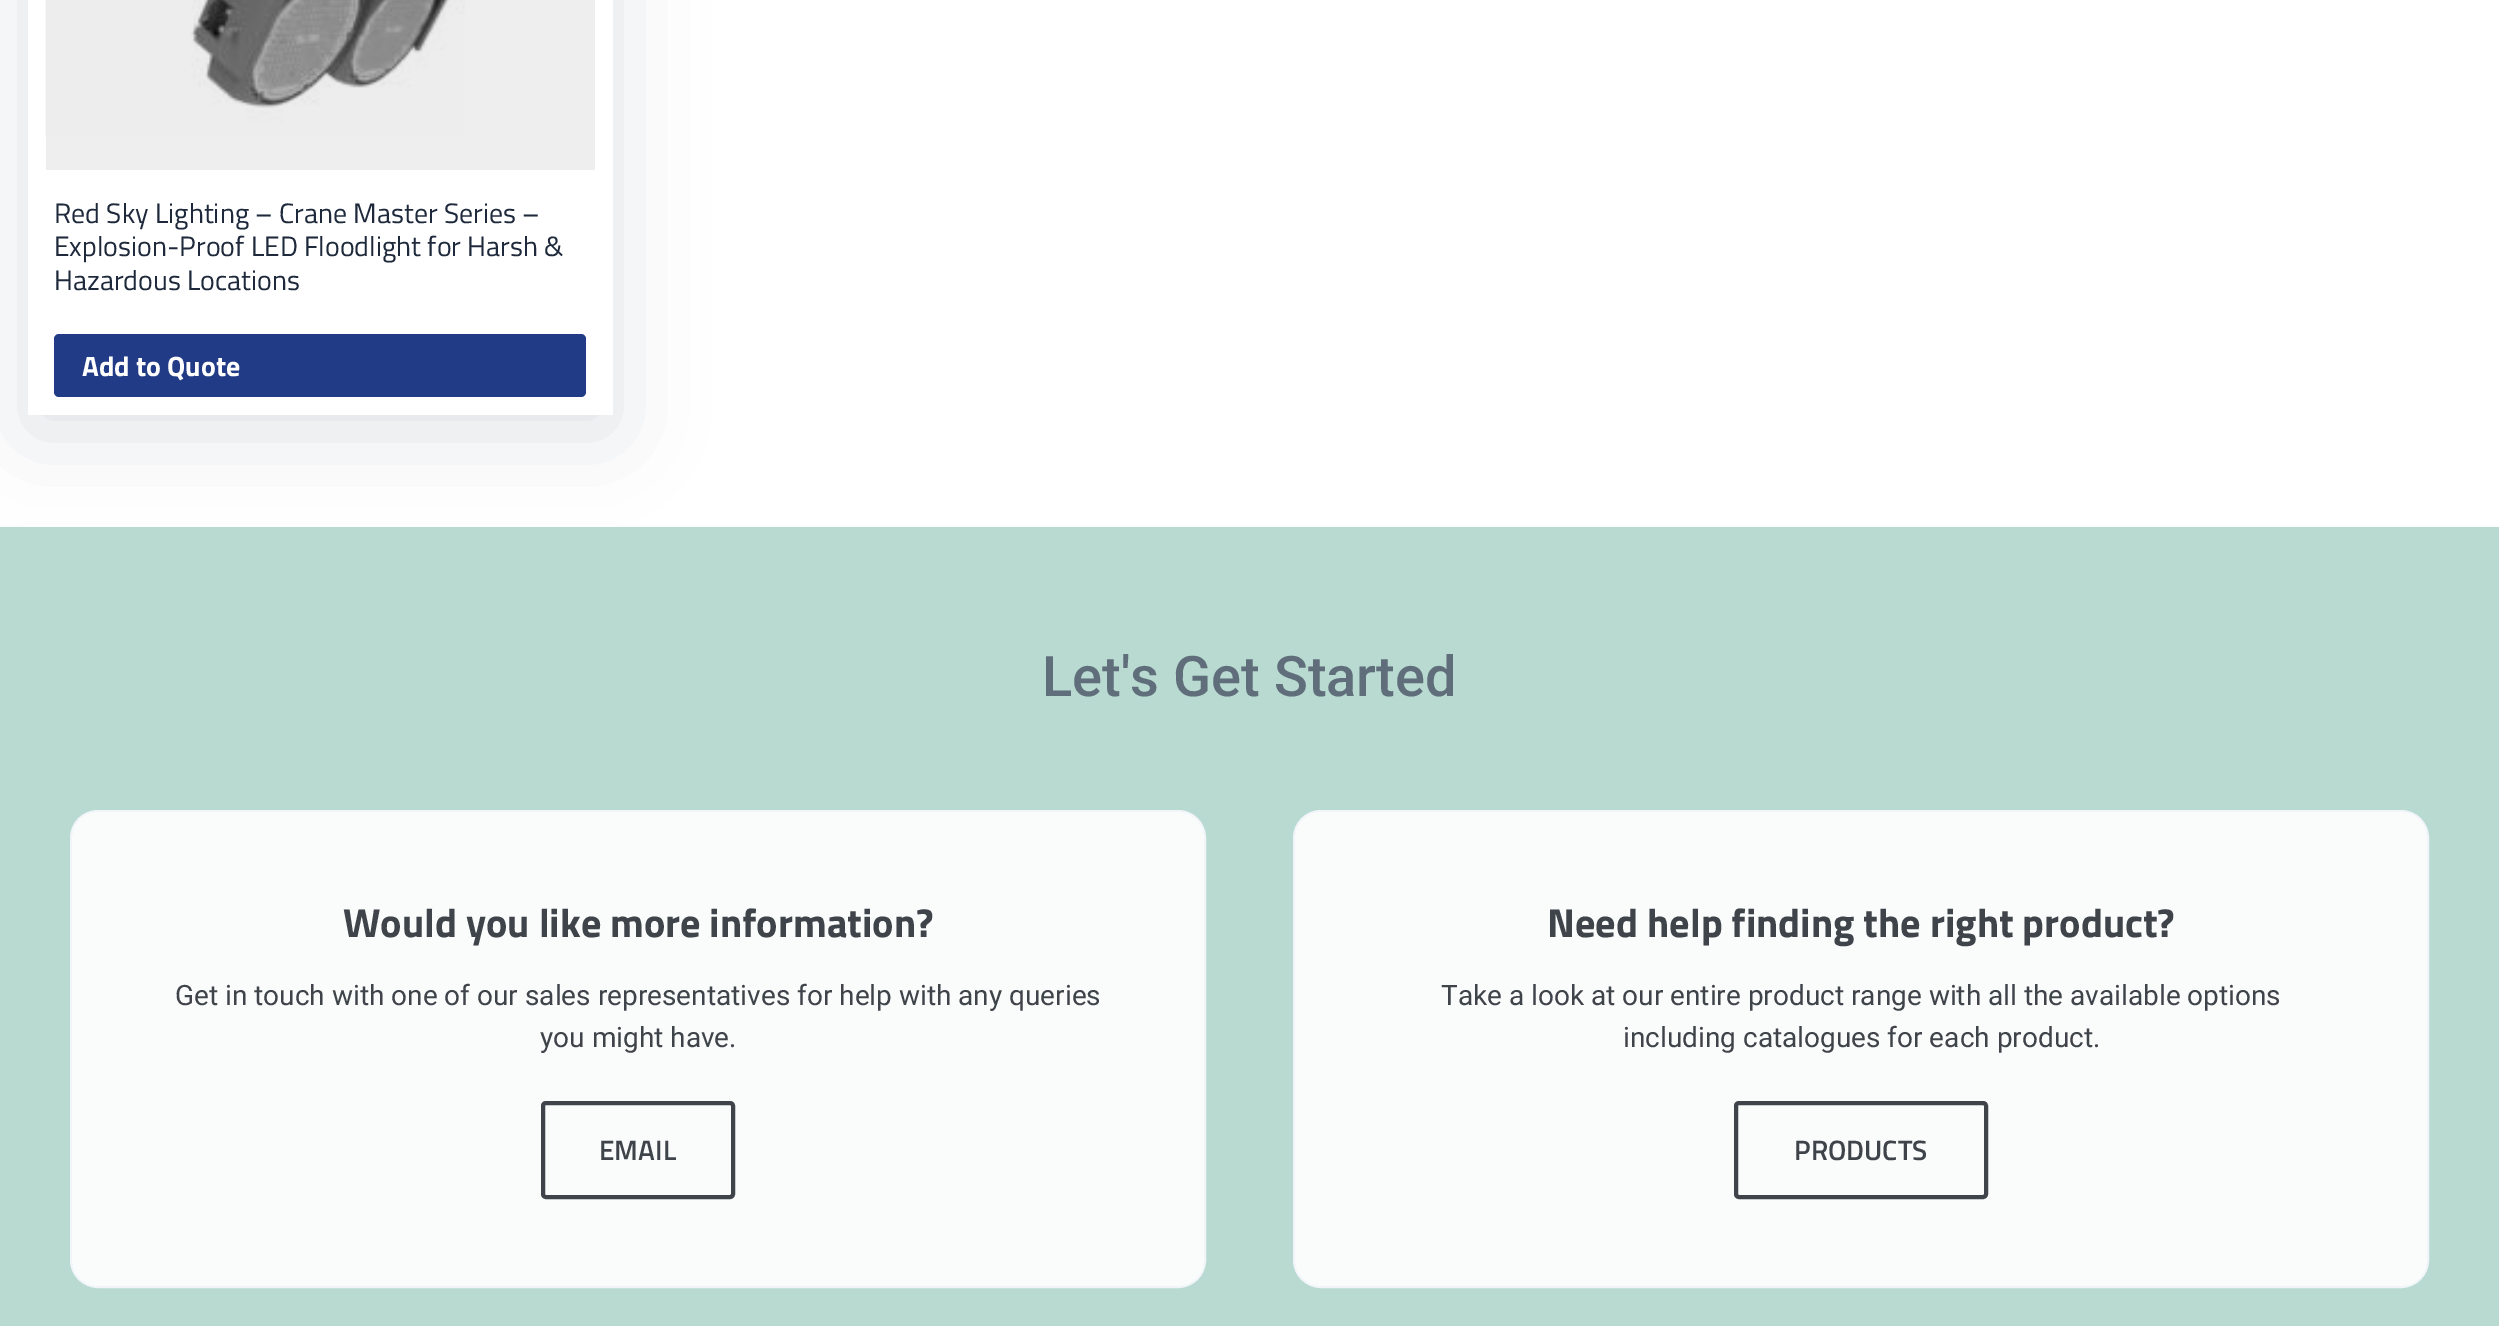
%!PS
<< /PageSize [2499 1326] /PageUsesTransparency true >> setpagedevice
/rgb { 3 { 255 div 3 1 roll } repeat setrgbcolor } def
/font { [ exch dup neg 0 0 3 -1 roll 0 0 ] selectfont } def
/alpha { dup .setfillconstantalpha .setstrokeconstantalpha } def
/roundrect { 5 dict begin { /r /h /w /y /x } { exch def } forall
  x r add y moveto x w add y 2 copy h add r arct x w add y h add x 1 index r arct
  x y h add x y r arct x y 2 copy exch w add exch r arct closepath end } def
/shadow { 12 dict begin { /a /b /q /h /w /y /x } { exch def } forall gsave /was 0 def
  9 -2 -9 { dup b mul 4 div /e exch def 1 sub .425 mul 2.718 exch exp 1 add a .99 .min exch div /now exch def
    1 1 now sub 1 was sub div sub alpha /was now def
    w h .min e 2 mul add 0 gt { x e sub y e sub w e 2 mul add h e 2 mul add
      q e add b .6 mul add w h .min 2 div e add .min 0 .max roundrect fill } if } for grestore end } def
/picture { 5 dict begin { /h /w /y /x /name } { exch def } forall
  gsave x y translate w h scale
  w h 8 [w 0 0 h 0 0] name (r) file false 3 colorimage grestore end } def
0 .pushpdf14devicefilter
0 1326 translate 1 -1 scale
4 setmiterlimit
255 255 255 rgb
0 0 2499 1326 rectfill
gsave
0 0 moveto 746 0 lineto 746 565 lineto 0 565 lineto closepath 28 -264 moveto 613 -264 lineto 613 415 lineto 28 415 lineto closepath eoclip newpath
17 34 51 rgb
28 -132 585 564 0 44 0.13 shadow
grestore
238 238 238 rgb
46 0 549 170 rectfill
(img/1.rgb) 45 0 420 137 picture
34 59 134 rgb
54 334 532 63 5 roundrect fill
184 218 208 rgb
0 527 2499 799 rectfill
241 245 249 rgb
2 setlinewidth
71 811 1134 476 27 roundrect stroke
0.91 alpha
255 255 255 rgb
72 812 1132 474 26 roundrect fill
1 alpha
63 68 75 rgb
4 setlinewidth
543 1103 190 94 3 roundrect stroke
241 245 249 rgb
2 setlinewidth
1294 811 1134 476 27 roundrect stroke
0.91 alpha
255 255 255 rgb
1295 812 1132 474 26 roundrect fill
1 alpha
63 68 75 rgb
4 setlinewidth
1736 1103 250 94 3 roundrect stroke
/TitilliumWeb-Regular 28 font
30 41 59 rgb
[
  [(Red Sky Lighting – Crane Master Series –) 54 223]
  [(Explosion-Proof LED Floodlight for Harsh &) 54 256]
  [(Hazardous Locations) 54 290]
] { aload pop moveto show } forall
/TitilliumWeb-Bold 28 font
255 255 255 rgb
82 376 moveto (Add to Quote) show
/Roboto-Medium 56 font
96 109 122 rgb
1042 696 moveto (Let's Get Started) show
/TitilliumWeb-Bold 40.25 font
63 68 75 rgb
343 937 moveto (Would you like more information?) show
/Roboto-Regular 28 font
175 1005 moveto (Get in touch with one of our sales representatives for help with any queries) show
540 1047 moveto (you might have.) show
/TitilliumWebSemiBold-SemiBold 28 font
599 1160 moveto (EMAIL) show
/TitilliumWeb-Bold 40.25 font
1547 937 moveto (Need help finding the right product?) show
/Roboto-Regular 28 font
1441 1005 moveto (Take a look at our entire product range with all the available options) show
1623 1047 moveto (including catalogues for each product.) show
/TitilliumWebSemiBold-SemiBold 28 font
1794 1160 moveto (PRODUCTS) show
.poppdf14devicefilter showpage
